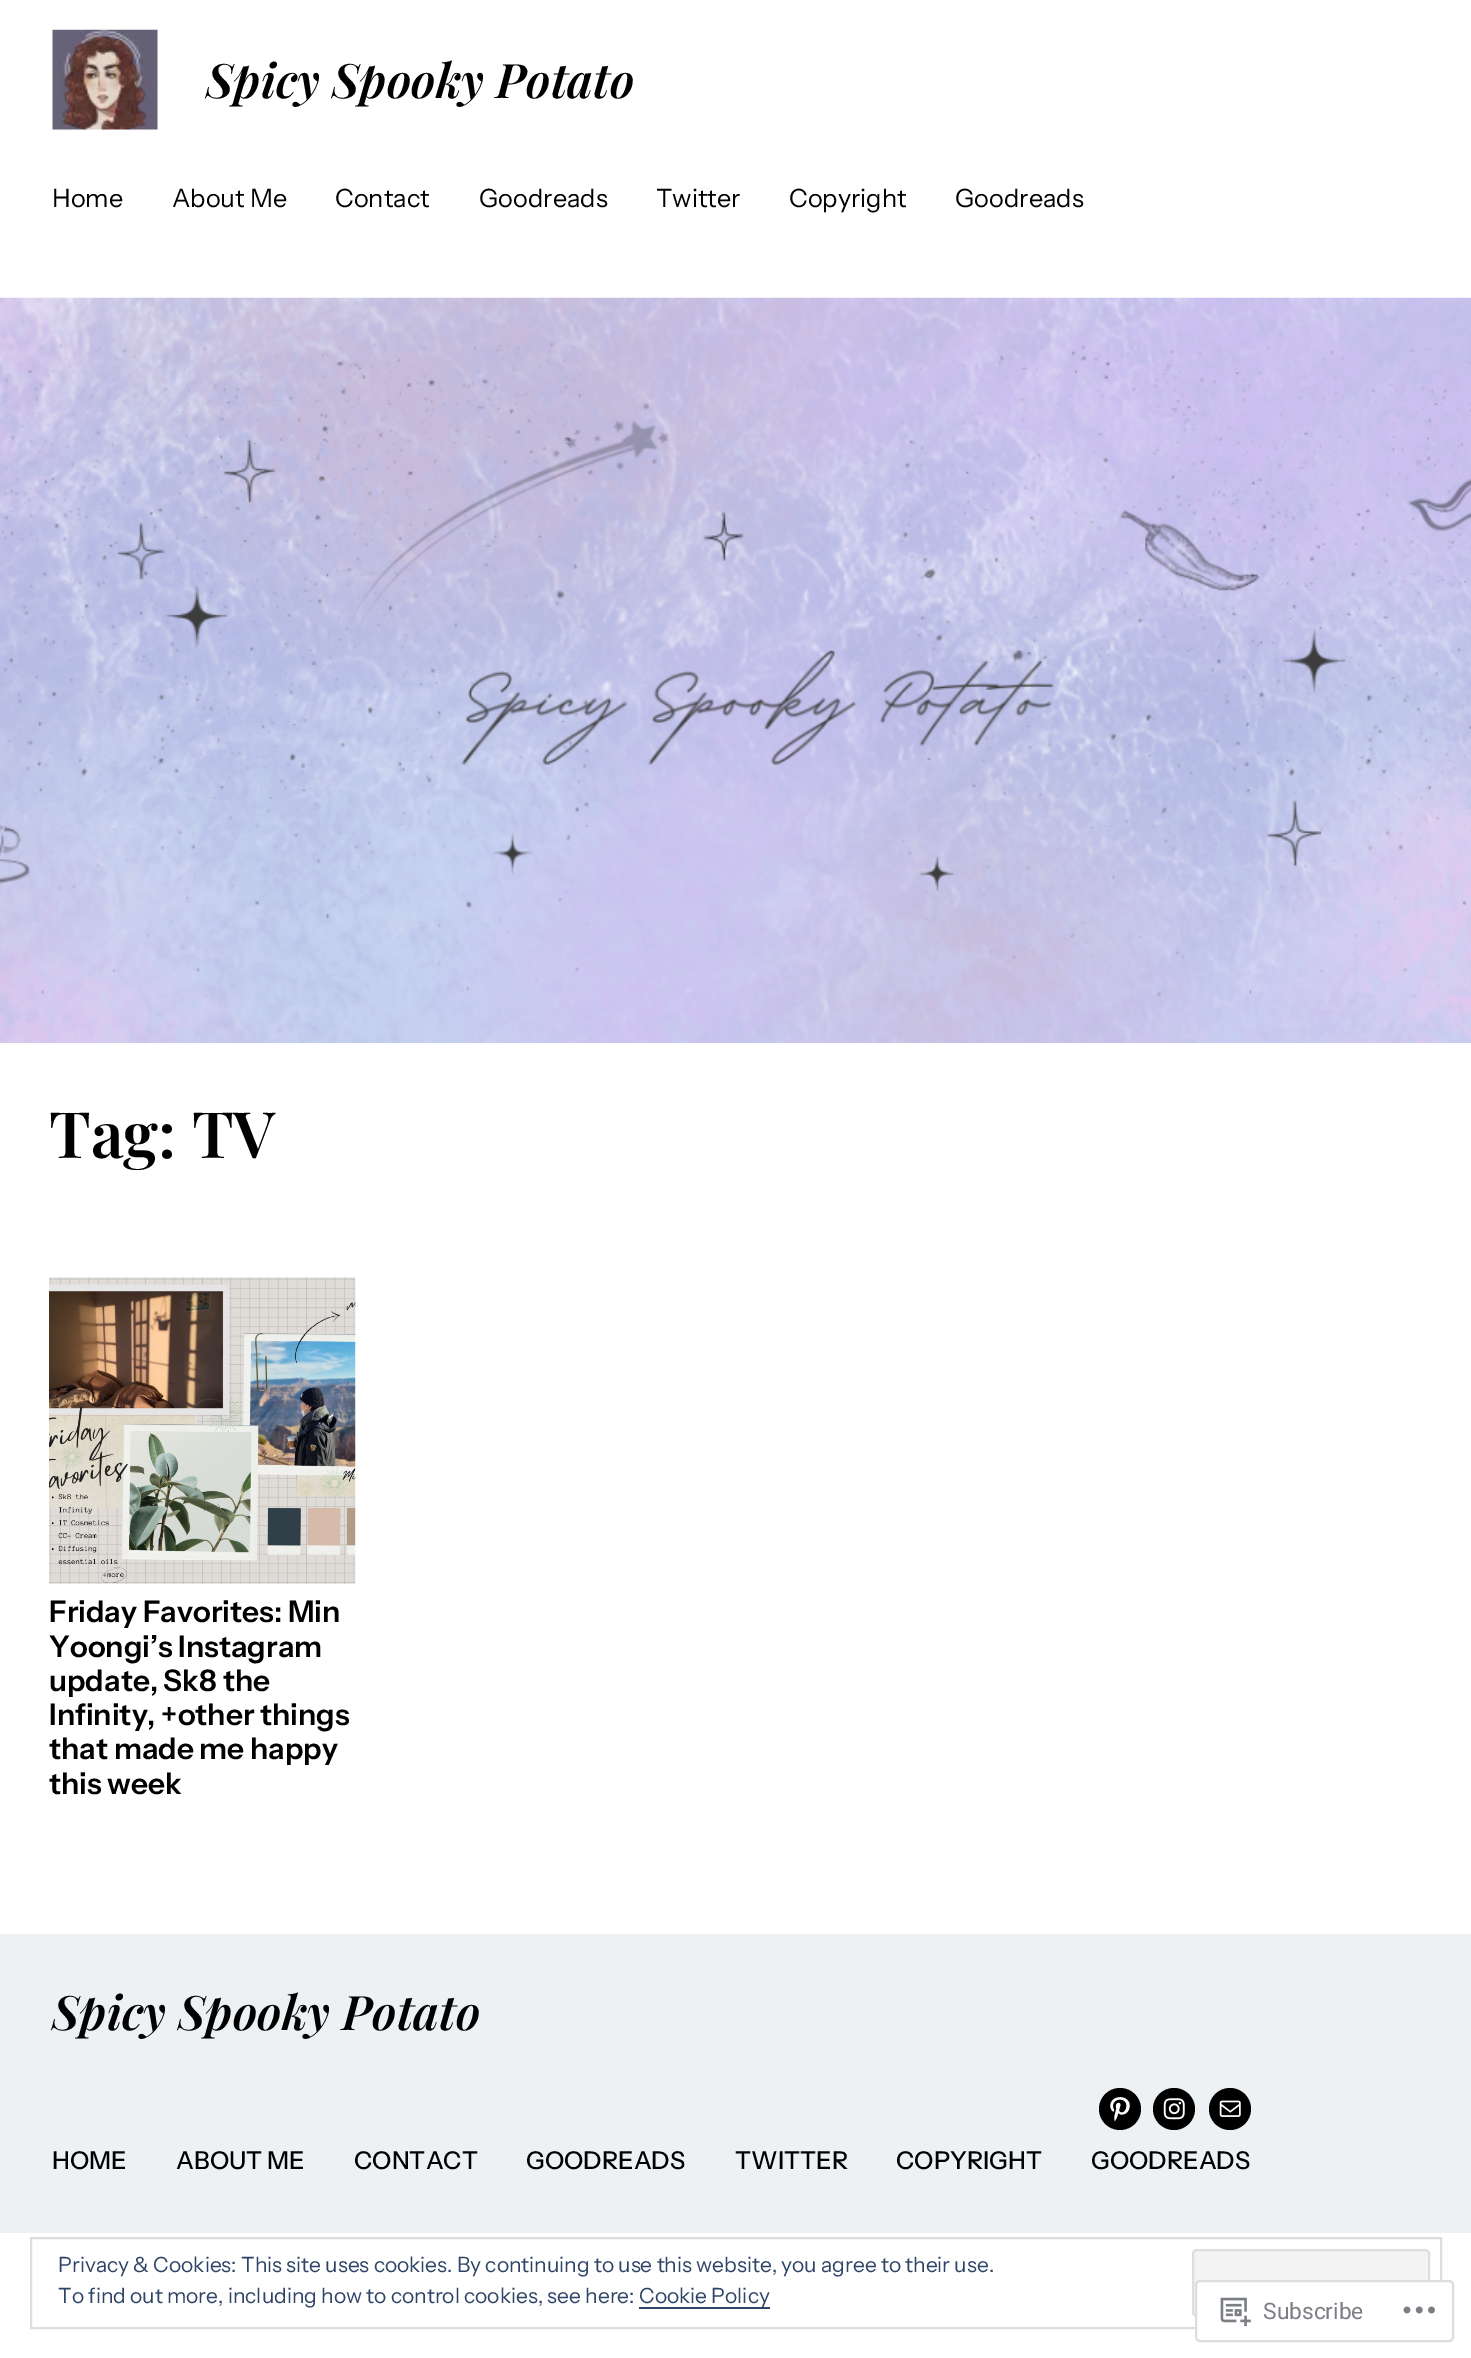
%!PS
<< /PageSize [1471 2358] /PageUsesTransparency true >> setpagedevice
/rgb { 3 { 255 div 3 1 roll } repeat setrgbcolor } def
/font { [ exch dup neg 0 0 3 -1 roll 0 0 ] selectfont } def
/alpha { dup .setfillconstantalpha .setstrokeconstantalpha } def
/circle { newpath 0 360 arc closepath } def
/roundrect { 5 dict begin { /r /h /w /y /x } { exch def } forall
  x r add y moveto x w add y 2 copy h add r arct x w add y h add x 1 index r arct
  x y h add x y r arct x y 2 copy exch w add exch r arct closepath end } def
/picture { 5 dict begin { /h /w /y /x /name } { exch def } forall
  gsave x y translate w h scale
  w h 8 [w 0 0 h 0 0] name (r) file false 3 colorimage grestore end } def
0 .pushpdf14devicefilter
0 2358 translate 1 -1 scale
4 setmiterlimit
255 255 255 rgb
0 0 1471 2358 rectfill
(img/1.rgb) 52 29 106 101 picture
(img/2.rgb) 0 297 1471 746 picture
(img/3.rgb) 49 1277 307 307 picture
237 241 244 rgb
0 1934 1471 299 rectfill
0 0 0 rgb
1120 2109 21 circle fill
(img/4.rgb) 1110 2097 20 25 picture
1174 2109 21 circle fill
(img/5.rgb) 1163 2098 22 22 picture
1230 2109 21 circle fill
(img/6.rgb) 1219 2100 22 17 picture
222 222 222 rgb
2 setlinewidth
31 2238 1410 90 rectstroke
243 243 243 rgb
1193 2250 236 66 4 roundrect gsave fill grestore
222 222 222 rgb
stroke
46 68 103 rgb
639 2307 131 2 rectfill
0.98 alpha
255 255 255 rgb
1195 2280 259 62 5 roundrect fill
220 220 222 rgb
1196 2281 257 60 4 roundrect stroke
1 alpha
(img/7.rgb) 1220 2297 31 30 picture
(img/8.rgb) 1403 2306 32 8 picture
/PlayfairDisplay-SemiBoldItalic 47.5 font
0 0 0 rgb
206 98 moveto (Spicy Spooky Potato) show
/InstrumentSans-Regular 25.25 font
[
  [(Home) 52 207]
  [(About Me) 172 207]
  [(Contact) 335 207]
  [(Goodreads) 479 207]
  [(Twitter) 656 207]
  [(Copyright) 789 207]
  [(Goodreads) 955 207]
] { aload pop moveto show } forall
/PlayfairDisplay-SemiBold 64 font
49 1158 moveto (Tag: TV) show
/InstrumentSans-SemiBold 29.75 font
[
  [(Friday Favorites: Min) 49 1622]
  [(Yoongi’s Instagram) 49 1657]
  [(update, Sk8 the) 49 1691]
  [(Infinity, +other things) 49 1725]
  [(that made me happy) 49 1759]
  [(this week) 49 1794]
] { aload pop moveto show } forall
/PlayfairDisplay-SemiBoldItalic 47.5 font
52 2030 moveto (Spicy Spooky Potato) show
/InstrumentSans-Medium 24.5 font
[
  [(HOME) 52 2169]
  [(ABOUT ME) 176 2169]
  [(CONTACT) 354 2169]
  [(GOODREADS) 526 2169]
  [(TWITTER) 735 2169]
  [(COPYRIGHT) 896 2169]
  [(GOODREADS) 1091 2169]
] { aload pop moveto show } forall
/InstrumentSans-Regular 21 font
46 68 103 rgb
[
  [(Privacy & Cookies: This site uses cookies. By continuing to use this website, you agree to their use.) 58 2272]
  [(To find out more, including how to control cookies, see here:) 58 2303]
  [(Cookie Policy) 639 2303]
] { aload pop moveto show } forall
/Roboto-Regular 22.75 font
123 127 132 rgb
1263 2319 moveto (Subscribe) show
.poppdf14devicefilter showpage
